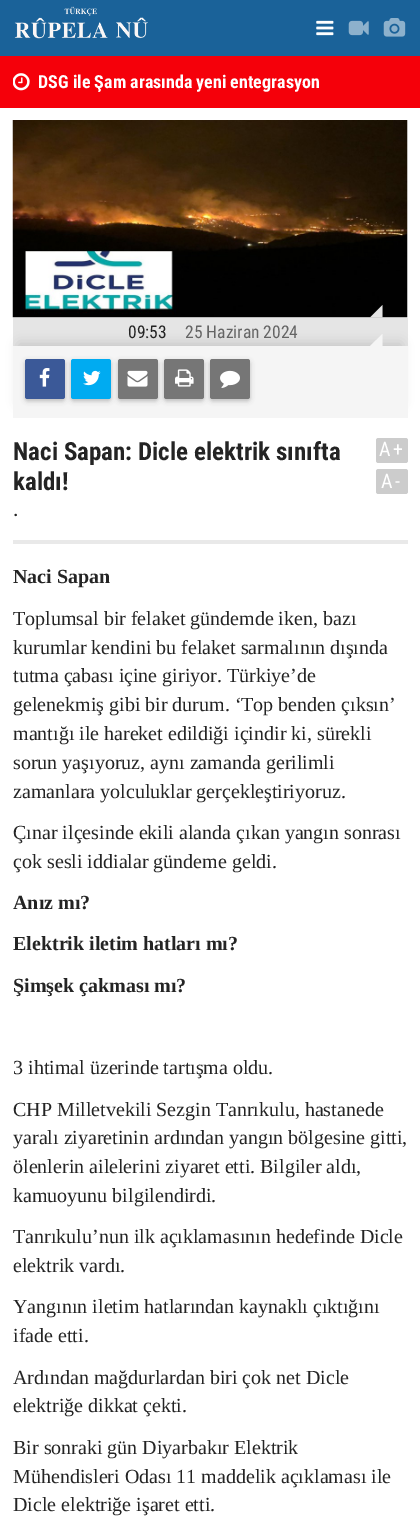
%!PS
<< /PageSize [420 1524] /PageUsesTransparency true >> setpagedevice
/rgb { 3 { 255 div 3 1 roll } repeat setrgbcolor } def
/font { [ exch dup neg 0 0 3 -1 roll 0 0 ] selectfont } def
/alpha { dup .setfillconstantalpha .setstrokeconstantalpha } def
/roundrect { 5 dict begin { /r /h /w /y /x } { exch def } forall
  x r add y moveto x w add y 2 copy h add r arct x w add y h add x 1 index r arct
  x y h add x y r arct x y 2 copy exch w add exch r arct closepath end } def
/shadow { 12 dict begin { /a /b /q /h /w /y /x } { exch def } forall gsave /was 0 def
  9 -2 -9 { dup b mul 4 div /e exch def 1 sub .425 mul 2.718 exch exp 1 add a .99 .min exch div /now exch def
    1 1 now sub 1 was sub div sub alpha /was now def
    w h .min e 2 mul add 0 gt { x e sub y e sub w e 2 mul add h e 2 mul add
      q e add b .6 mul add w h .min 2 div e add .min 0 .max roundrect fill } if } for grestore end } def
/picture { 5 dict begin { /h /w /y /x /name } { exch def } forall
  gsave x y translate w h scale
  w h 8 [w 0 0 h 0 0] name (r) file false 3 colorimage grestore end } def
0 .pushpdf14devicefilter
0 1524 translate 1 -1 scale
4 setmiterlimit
255 255 255 rgb
0 0 420 1524 rectfill
26 98 153 rgb
0 0 420 56 rectfill
(img/1.rgb) 14 6 134 33 picture
(img/2.rgb) 316 20 18 16 picture
(img/3.rgb) 348 20 21 16 picture
(img/4.rgb) 383 18 23 19 picture
245 0 10 rgb
0 56 420 52 rectfill
(img/5.rgb) 13 73 17 18 picture
248 248 248 rgb
13 120 395 198 rectfill
(img/6.rgb) 12 120 396 198 picture
229 229 229 rgb
13 318 395 28 rectfill
0 0 0 rgb
19 344 382 59 0 6 0.15 shadow
245 245 245 rgb
13 346 395 72 rectfill
382.5 346 moveto 370 346 lineto 382.5 334 lineto closepath fill
50 50 50 rgb
25 361 40 40 2.5 2.5 0.3 shadow
59 89 152 rgb
25 359 40 40 2.5 roundrect fill
(img/7.rgb) 39 368 11 19 picture
50 50 50 rgb
71 361 40 40 2.5 2.5 0.3 shadow
0 171 241 rgb
71 359 40 40 2.5 roundrect fill
(img/8.rgb) 83 370 18 16 picture
50 50 50 rgb
118 361 40 40 2.5 2.5 0.3 shadow
118 118 118 rgb
118 359 40 40 2.5 roundrect fill
(img/9.rgb) 127 370 21 17 picture
50 50 50 rgb
164 361 40 40 2.5 2.5 0.3 shadow
118 118 118 rgb
164 359 40 40 2.5 roundrect fill
(img/10.rgb) 175 369 19 18 picture
50 50 50 rgb
210 361 40 40 2.5 2.5 0.3 shadow
118 118 118 rgb
210 359 40 40 2.5 roundrect fill
(img/11.rgb) 220 370 20 18 picture
229 229 229 rgb
382.5 317.5 moveto 370 317.5 lineto 382.5 305 lineto closepath fill
233 233 233 rgb
13 540 395 4 rectfill
204 204 204 rgb
376 438 32 25 2.5 roundrect fill
376 469 32 25 2.5 roundrect fill
/RobotoCondensed-Bold 18 font
255 255 255 rgb
38 88 moveto (DSG ile Şam arasında yeni entegrasyon) show
/RobotoCondensed-Regular 17.5 font
36 36 36 rgb
128 338 moveto (09:53) show
101 101 101 rgb
185 338 moveto (25 Haziran 2024) show
/RobotoCondensed-Bold 25 font
36 36 36 rgb
13 460 moveto (Naci Sapan: Dicle elektrik sınıfta) show
13 490 moveto (kaldı!) show
/RobotoCondensed-Regular 20 font
255 255 255 rgb
379 456 moveto 2 0 (A+) ashow
381 488 moveto 2 0 (A-) ashow
/RobotoCondensed-Regular 22 font
36 36 36 rgb
13 516 moveto (.) show
/LiberationSerif-Bold 20 font
13 583 moveto (Naci Sapan) show
/LiberationSerif-Regular 20 font
[
  [(Toplumsal bir felaket gündemde iken, bazı) 13 625]
  [(kurumlar kendini bu felaket sarmalının dışında) 13 654]
  [(tutma çabası içine giriyor. Türkiye’de) 13 682]
  [(gelenekmiş gibi bir durum. ‘Top benden çıksın’) 13 711]
  [(mantığı ile hareket edildiği içindir ki, sürekli) 13 740]
  [(sorun yaşıyoruz, aynı zamanda gerilimli) 13 769]
  [(zamanlara yolculuklar gerçekleştiriyoruz.) 13 798]
  [(Çınar ilçesinde ekili alanda çıkan yangın sonrası) 13 839]
  [(çok sesli iddialar gündeme geldi.) 13 868]
] { aload pop moveto show } forall
/LiberationSerif-Bold 20 font
[
  [(Anız mı?) 13 909]
  [(Elektrik iletim hatları mı?) 13 950]
  [(Şimşek çakması mı?) 13 992]
] { aload pop moveto show } forall
/LiberationSerif-Regular 20 font
[
  [(3 ihtimal üzerinde tartışma oldu.) 13 1074]
  [(CHP Milletvekili Sezgin Tanrıkulu, hastanede) 13 1116]
  [(yaralı ziyaretinin ardından yangın bölgesine gitti,) 13 1144]
  [(ölenlerin ailelerini ziyaret etti. Bilgiler aldı,) 13 1173]
  [(kamuoyunu bilgilendirdi.) 13 1202]
  [(Tanrıkulu’nun ilk açıklamasının hedefinde Dicle) 13 1243]
  [(elektrik vardı.) 13 1272]
  [(Yangının iletim hatlarından kaynaklı çıktığını) 13 1313]
  [(ifade etti.) 13 1342]
  [(Ardından mağdurlardan biri çok net Dicle) 13 1384]
  [(elektriğe dikkat çekti.) 13 1412]
  [(Bir sonraki gün Diyarbakır Elektrik) 13 1454]
  [(Mühendisleri Odası 11 maddelik açıklaması ile) 13 1483]
  [(Dicle elektriğe işaret etti.) 13 1511]
] { aload pop moveto show } forall
.poppdf14devicefilter showpage
